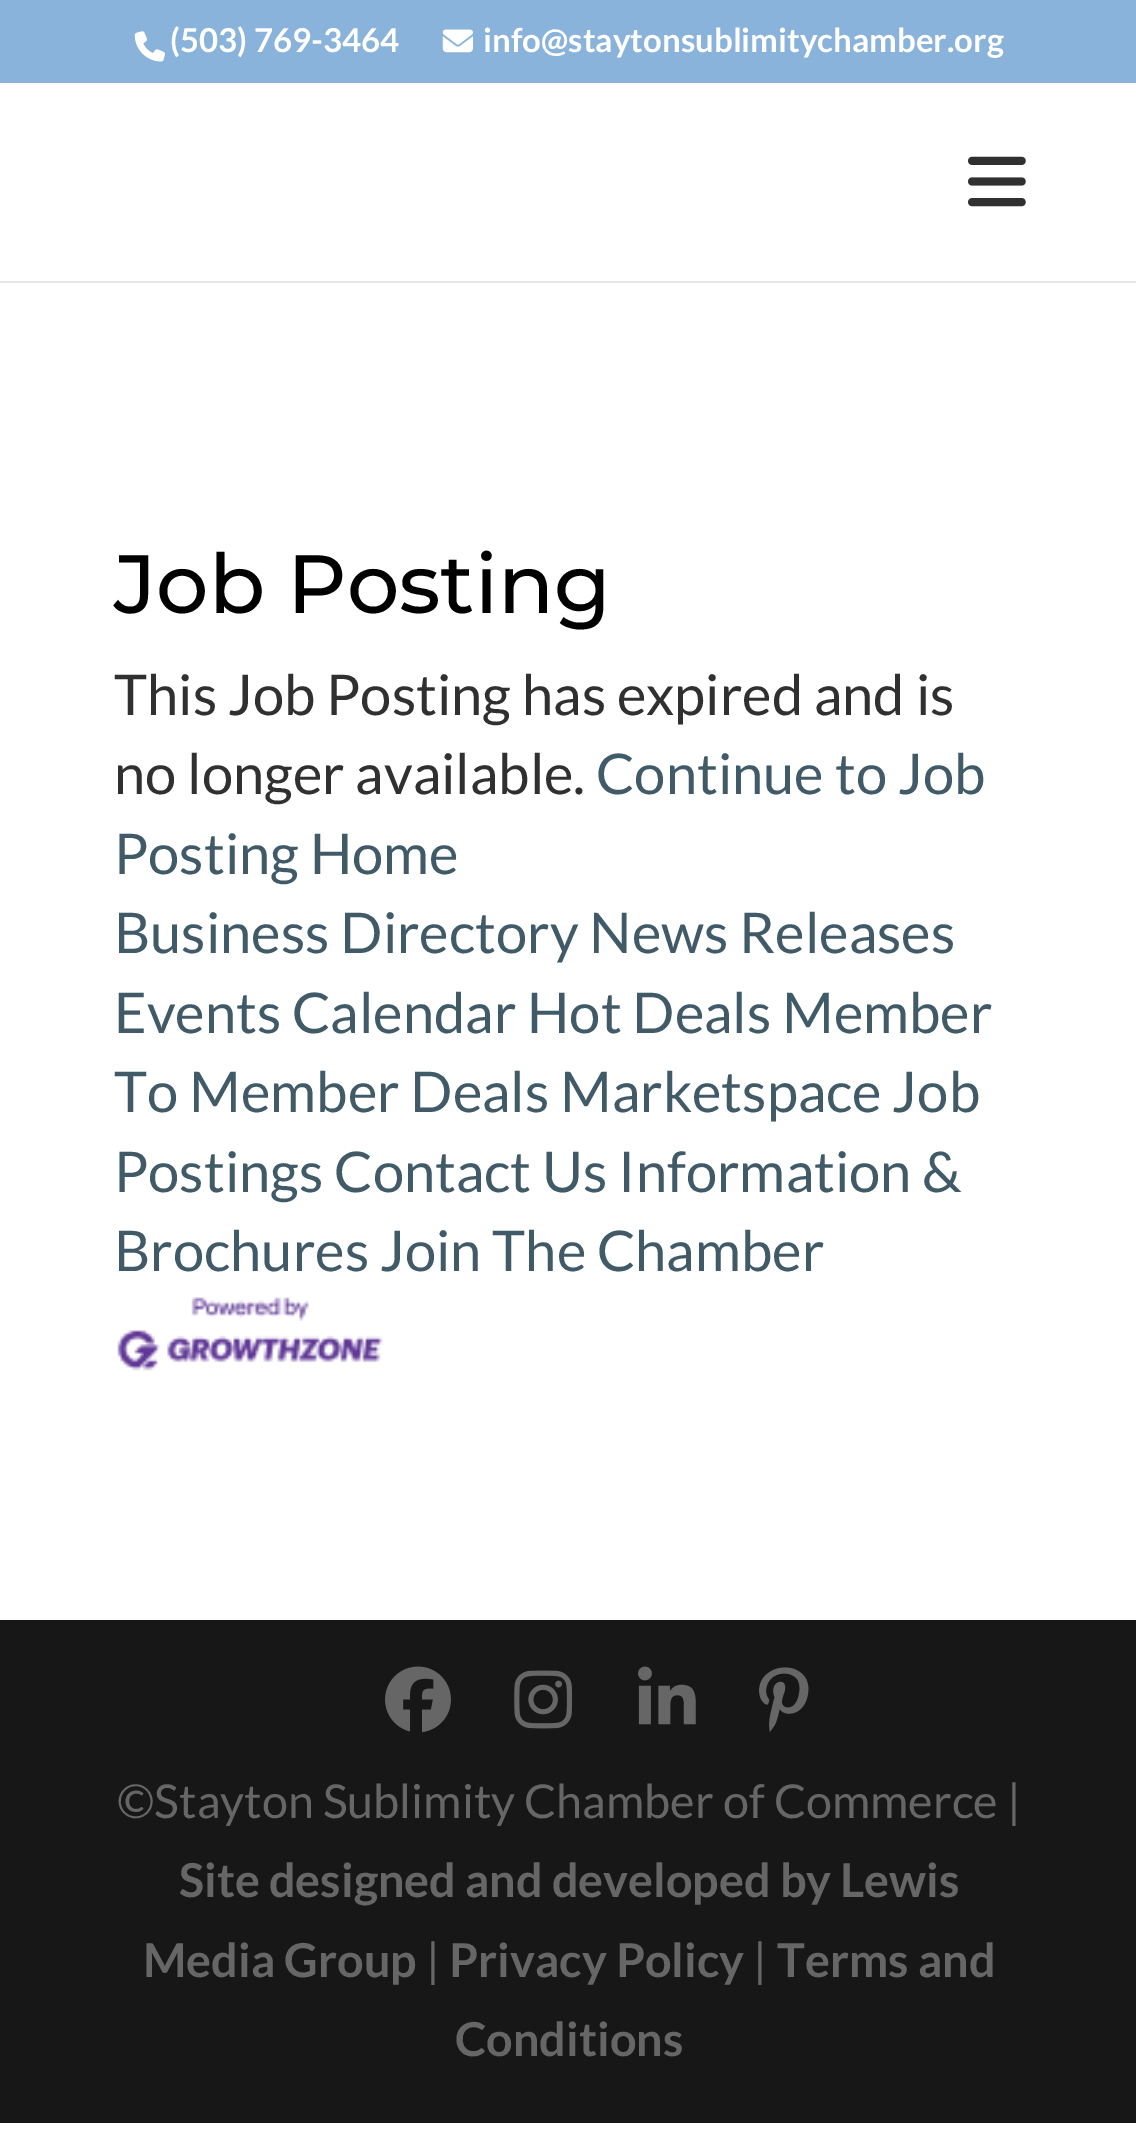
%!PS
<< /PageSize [1136 2129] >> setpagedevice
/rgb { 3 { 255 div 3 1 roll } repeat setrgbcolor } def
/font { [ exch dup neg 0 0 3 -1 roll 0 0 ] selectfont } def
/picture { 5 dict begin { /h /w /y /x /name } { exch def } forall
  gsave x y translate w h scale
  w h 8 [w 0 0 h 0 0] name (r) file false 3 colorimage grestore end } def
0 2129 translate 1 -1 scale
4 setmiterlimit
255 255 255 rgb
0 0 1136 2129 rectfill
137 179 219 rgb
0 0 1136 83 rectfill
(img/1.rgb) 134 31 31 31 picture
(img/2.rgb) 442 29 31 24 picture
230 230 230 rgb
0 280 moveto 0 283 lineto 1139 283 lineto 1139 85 lineto 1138 85 lineto 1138 280 lineto closepath fill
255 255 255 rgb
0 280 1136 1 rectfill
(img/3.rgb) 968 156 58 51 picture
(img/4.rgb) 117 1297 266 74 picture
23 23 23 rgb
0 1620 1136 503 rectfill
(img/5.rgb) 385 1666 66 67 picture
(img/6.rgb) 514 1670 58 59 picture
(img/7.rgb) 638 1666 58 59 picture
(img/8.rgb) 759 1667 50 65 picture
/Lato-Bold 33 font
255 255 255 rgb
170 52 moveto (\(503\) 769-3464) show
483 52 moveto (info@staytonsublimitychamber.org) show
/Montserrat-Medium 82.5 font
0 0 0 rgb
114 613 moveto (Job Posting) show
/Lato-Regular 56.1 font
48 48 48 rgb
114 715 moveto (This Job Posting has expired and is) show
114 794 moveto (no longer available.) show
64 90 103 rgb
[
  [(Continue to Job) 596 794]
  [(Posting Home) 114 874]
  [(Business Directory News Releases) 114 953]
  [(Events Calendar Hot Deals Member) 114 1033]
  [(To Member Deals Marketspace Job) 114 1112]
  [(Postings Contact Us Information &) 114 1192]
  [(Brochures Join The Chamber) 114 1271]
] { aload pop moveto show } forall
/Lato-Regular 46.75 font
102 102 102 rgb
117 1818 moveto (©Stayton Sublimity Chamber of Commerce |) show
/Lato-Bold 46.75 font
179 1897 moveto (Site designed and developed by Lewis) show
143 1977 moveto (Media Group) show
/Lato-Regular 46.75 font
426 1977 moveto (|) show
/Lato-Bold 46.75 font
449 1977 moveto (Privacy Policy) show
/Lato-Regular 46.75 font
753 1977 moveto (|) show
/Lato-Bold 46.75 font
777 1977 moveto (Terms and) show
455 2056 moveto (Conditions) show
showpage
